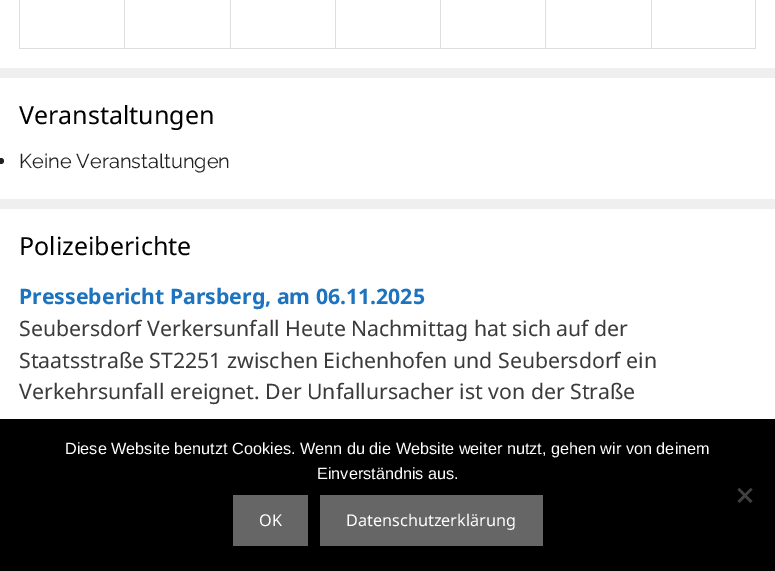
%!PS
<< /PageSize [775 571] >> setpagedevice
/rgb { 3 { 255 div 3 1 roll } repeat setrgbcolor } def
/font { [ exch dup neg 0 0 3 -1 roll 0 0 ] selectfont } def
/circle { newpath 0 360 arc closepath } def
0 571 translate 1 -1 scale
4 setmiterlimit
239 239 239 rgb
0 0 775 571 rectfill
[
  [0 0 775 68 255 255 255]
  [19 48 737 1 222 222 222]
  [19 0 1 48 222 222 222]
  [124 0 1 48 222 222 222]
  [230 0 1 48 222 222 222]
  [335 0 1 48 222 222 222]
  [440 0 1 48 222 222 222]
  [545 0 1 48 222 222 222]
  [755 0 1 48 222 222 222]
  [651 0 1 48 222 222 222]
  [0 78 775 121 255 255 255]
] { aload pop rgb rectfill } forall
33 33 33 rgb
1 161 3 circle fill
255 255 255 rgb
0 209 775 210 rectfill
0 0 0 rgb
0 419 775 152 rectfill
64 64 64 rgb
750.5 488 moveto 752.5 489.5 lineto 739.5 503 lineto 737.5 501 lineto closepath fill
737.5 489.5 moveto 739.5 488 lineto 752.5 501 lineto 750.5 503 lineto closepath fill
102 102 102 rgb
233 495 75 51 rectfill
320 495 223 51 rectfill
/NotoSans-Regular 25 font
0 0 0 rgb
19 124 moveto (Veranstaltungen) show
/Raleway-Regular 20 font
33 33 33 rgb
19 168 moveto (Keine Veranstaltungen) show
/NotoSans-Regular 25 font
0 0 0 rgb
19 255 moveto (Polizeiberichte) show
/NotoSans-Bold 21.25 font
30 115 190 rgb
19 304 moveto (Pressebericht Parsberg, am 06.11.2025) show
/NotoSans-Regular 21.25 font
58 58 58 rgb
[
  [(Seubersdorf Verkersunfall Heute Nachmittag hat sich auf der) 19 336]
  [(Staatsstraße ST2251 zwischen Eichenhofen und Seubersdorf ein) 19 368]
  [(Verkehrsunfall ereignet. Der Unfallursacher ist von der Straße) 19 399]
] { aload pop moveto show } forall
/LiberationSans-Regular 16.25 font
255 255 255 rgb
65 454 moveto (Diese Website benutzt Cookies. Wenn du die Website weiter nutzt, gehen wir von deinem) show
317 479 moveto (Einverständnis aus.) show
/NotoSans-Regular 16.25 font
259 526 moveto (OK) show
346 526 moveto (Datenschutzerklärung) show
showpage
